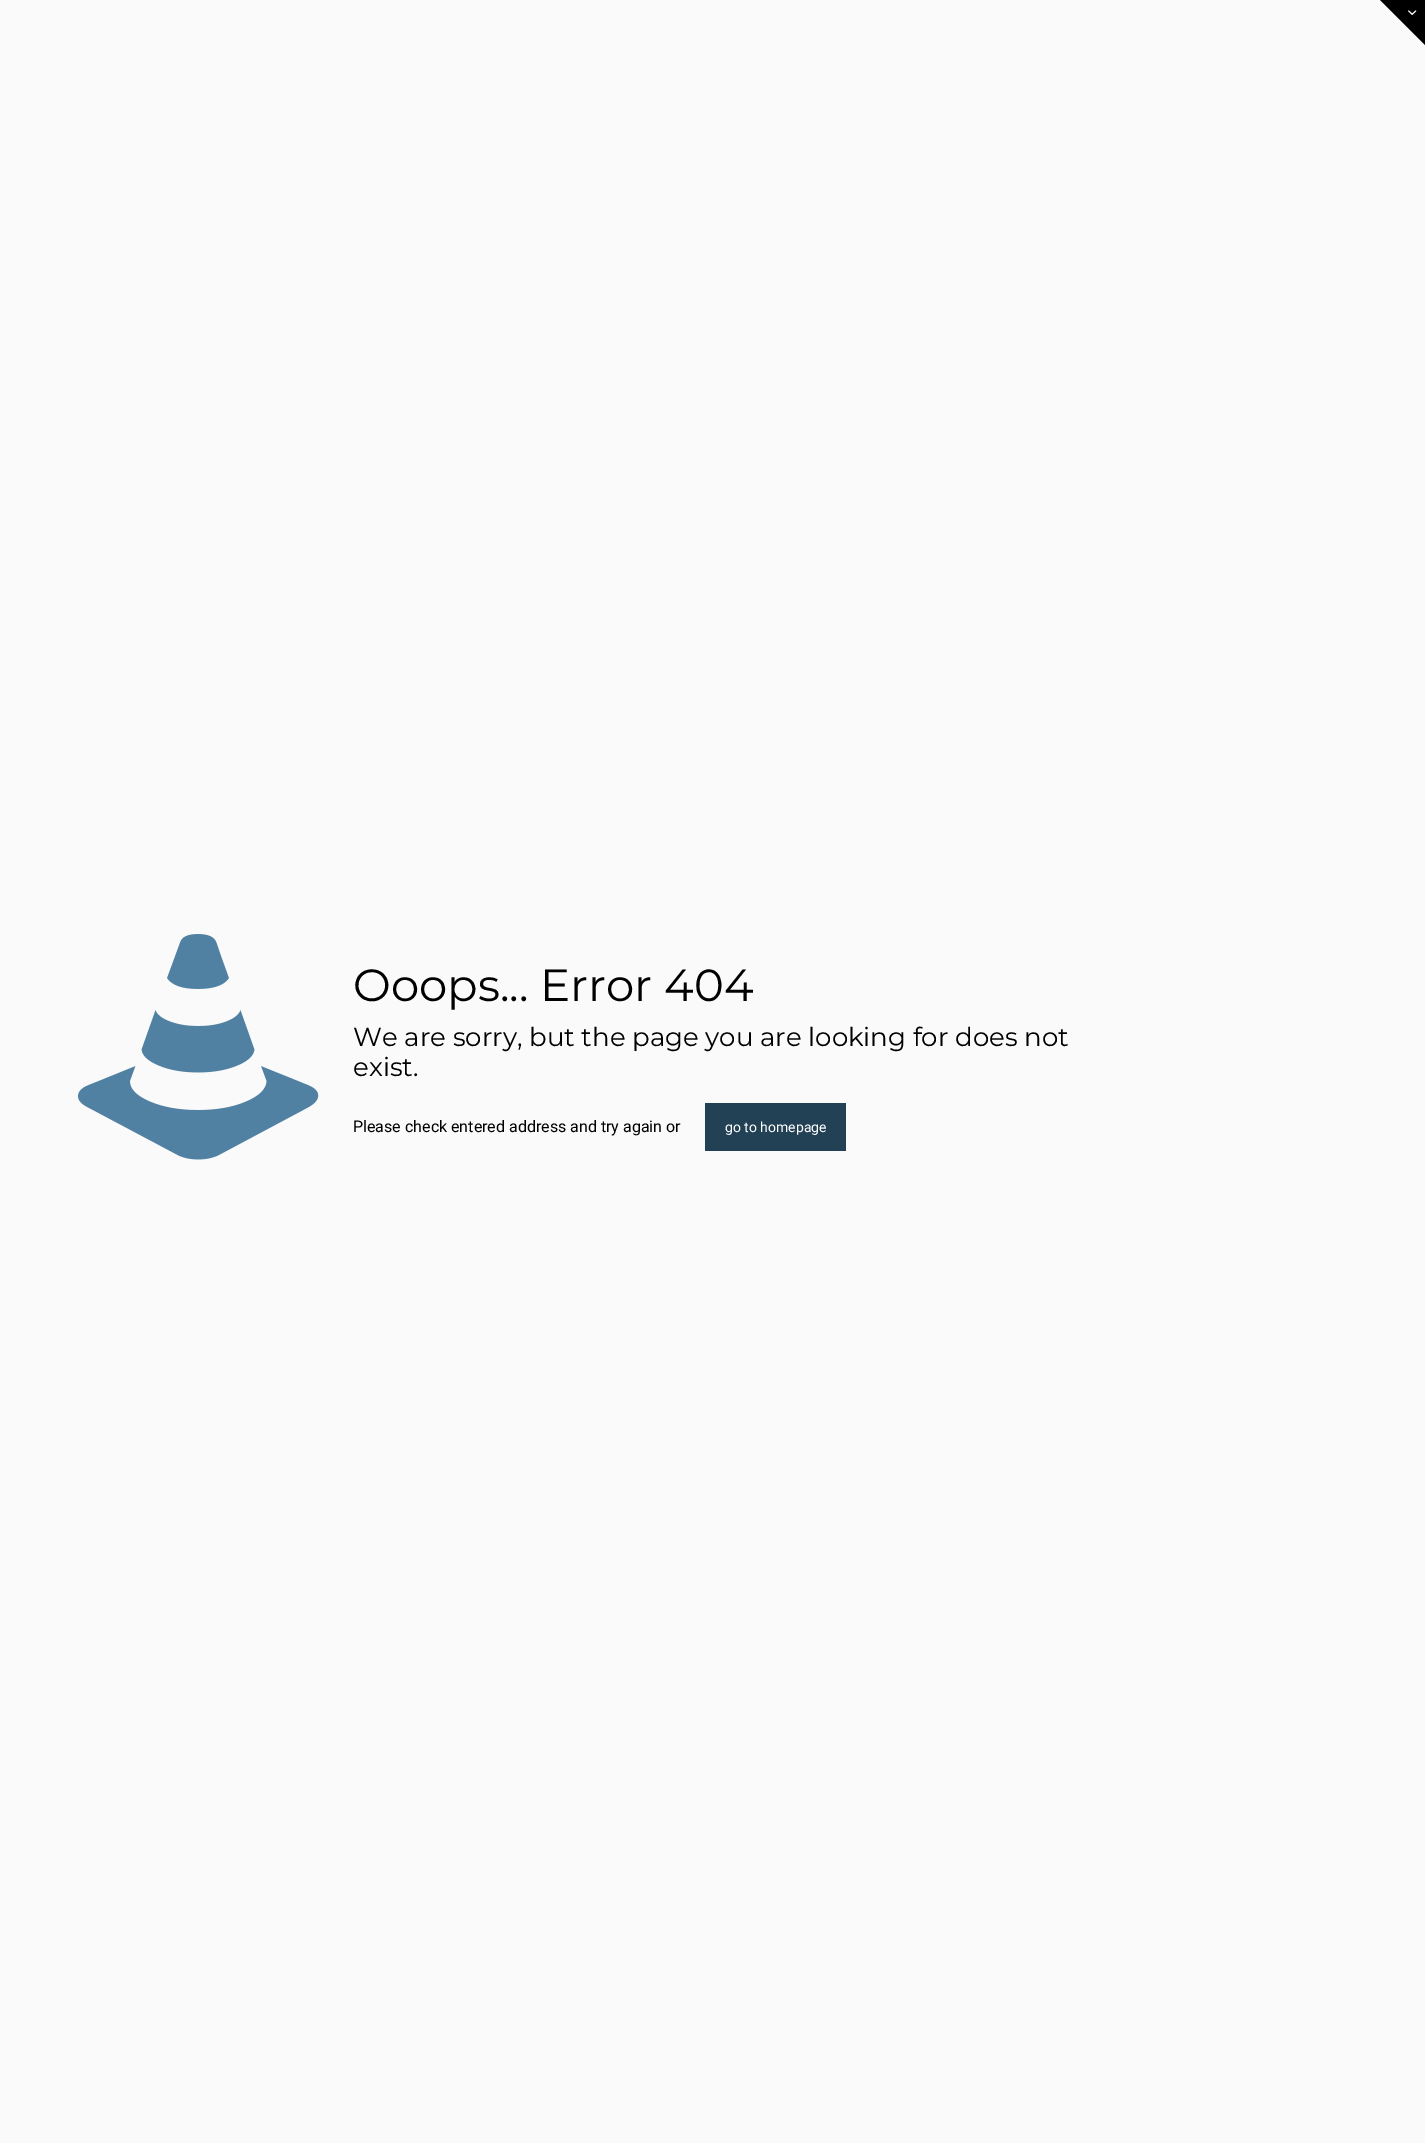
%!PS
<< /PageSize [1425 2143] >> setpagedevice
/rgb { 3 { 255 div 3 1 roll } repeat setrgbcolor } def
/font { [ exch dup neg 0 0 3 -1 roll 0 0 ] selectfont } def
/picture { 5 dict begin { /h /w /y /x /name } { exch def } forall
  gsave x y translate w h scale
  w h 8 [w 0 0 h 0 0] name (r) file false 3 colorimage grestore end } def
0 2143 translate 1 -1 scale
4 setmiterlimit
250 250 250 rgb
0 0 1425 2143 rectfill
0 0 0 rgb
1425 0 moveto 1425 45 lineto 1380 0 lineto closepath fill
(img/1.rgb) 1408 10 9 5 picture
(img/2.rgb) 78 934 241 226 picture
34 65 85 rgb
705 1103 141 48 rectfill
/Montserrat-Regular 45 font
0 0 0 rgb
353 1001 moveto (Ooops... Error 404) show
/Montserrat-Regular 26 font
353 1046 moveto (We are sorry, but the page you are looking for does not) show
353 1076 moveto (exist.) show
/Roboto-Regular 16 font
353 1132 moveto (Please check entered address and try again or) show
/Roboto-Regular 14 font
255 255 255 rgb
725 1132 moveto (go to homepage) show
showpage
